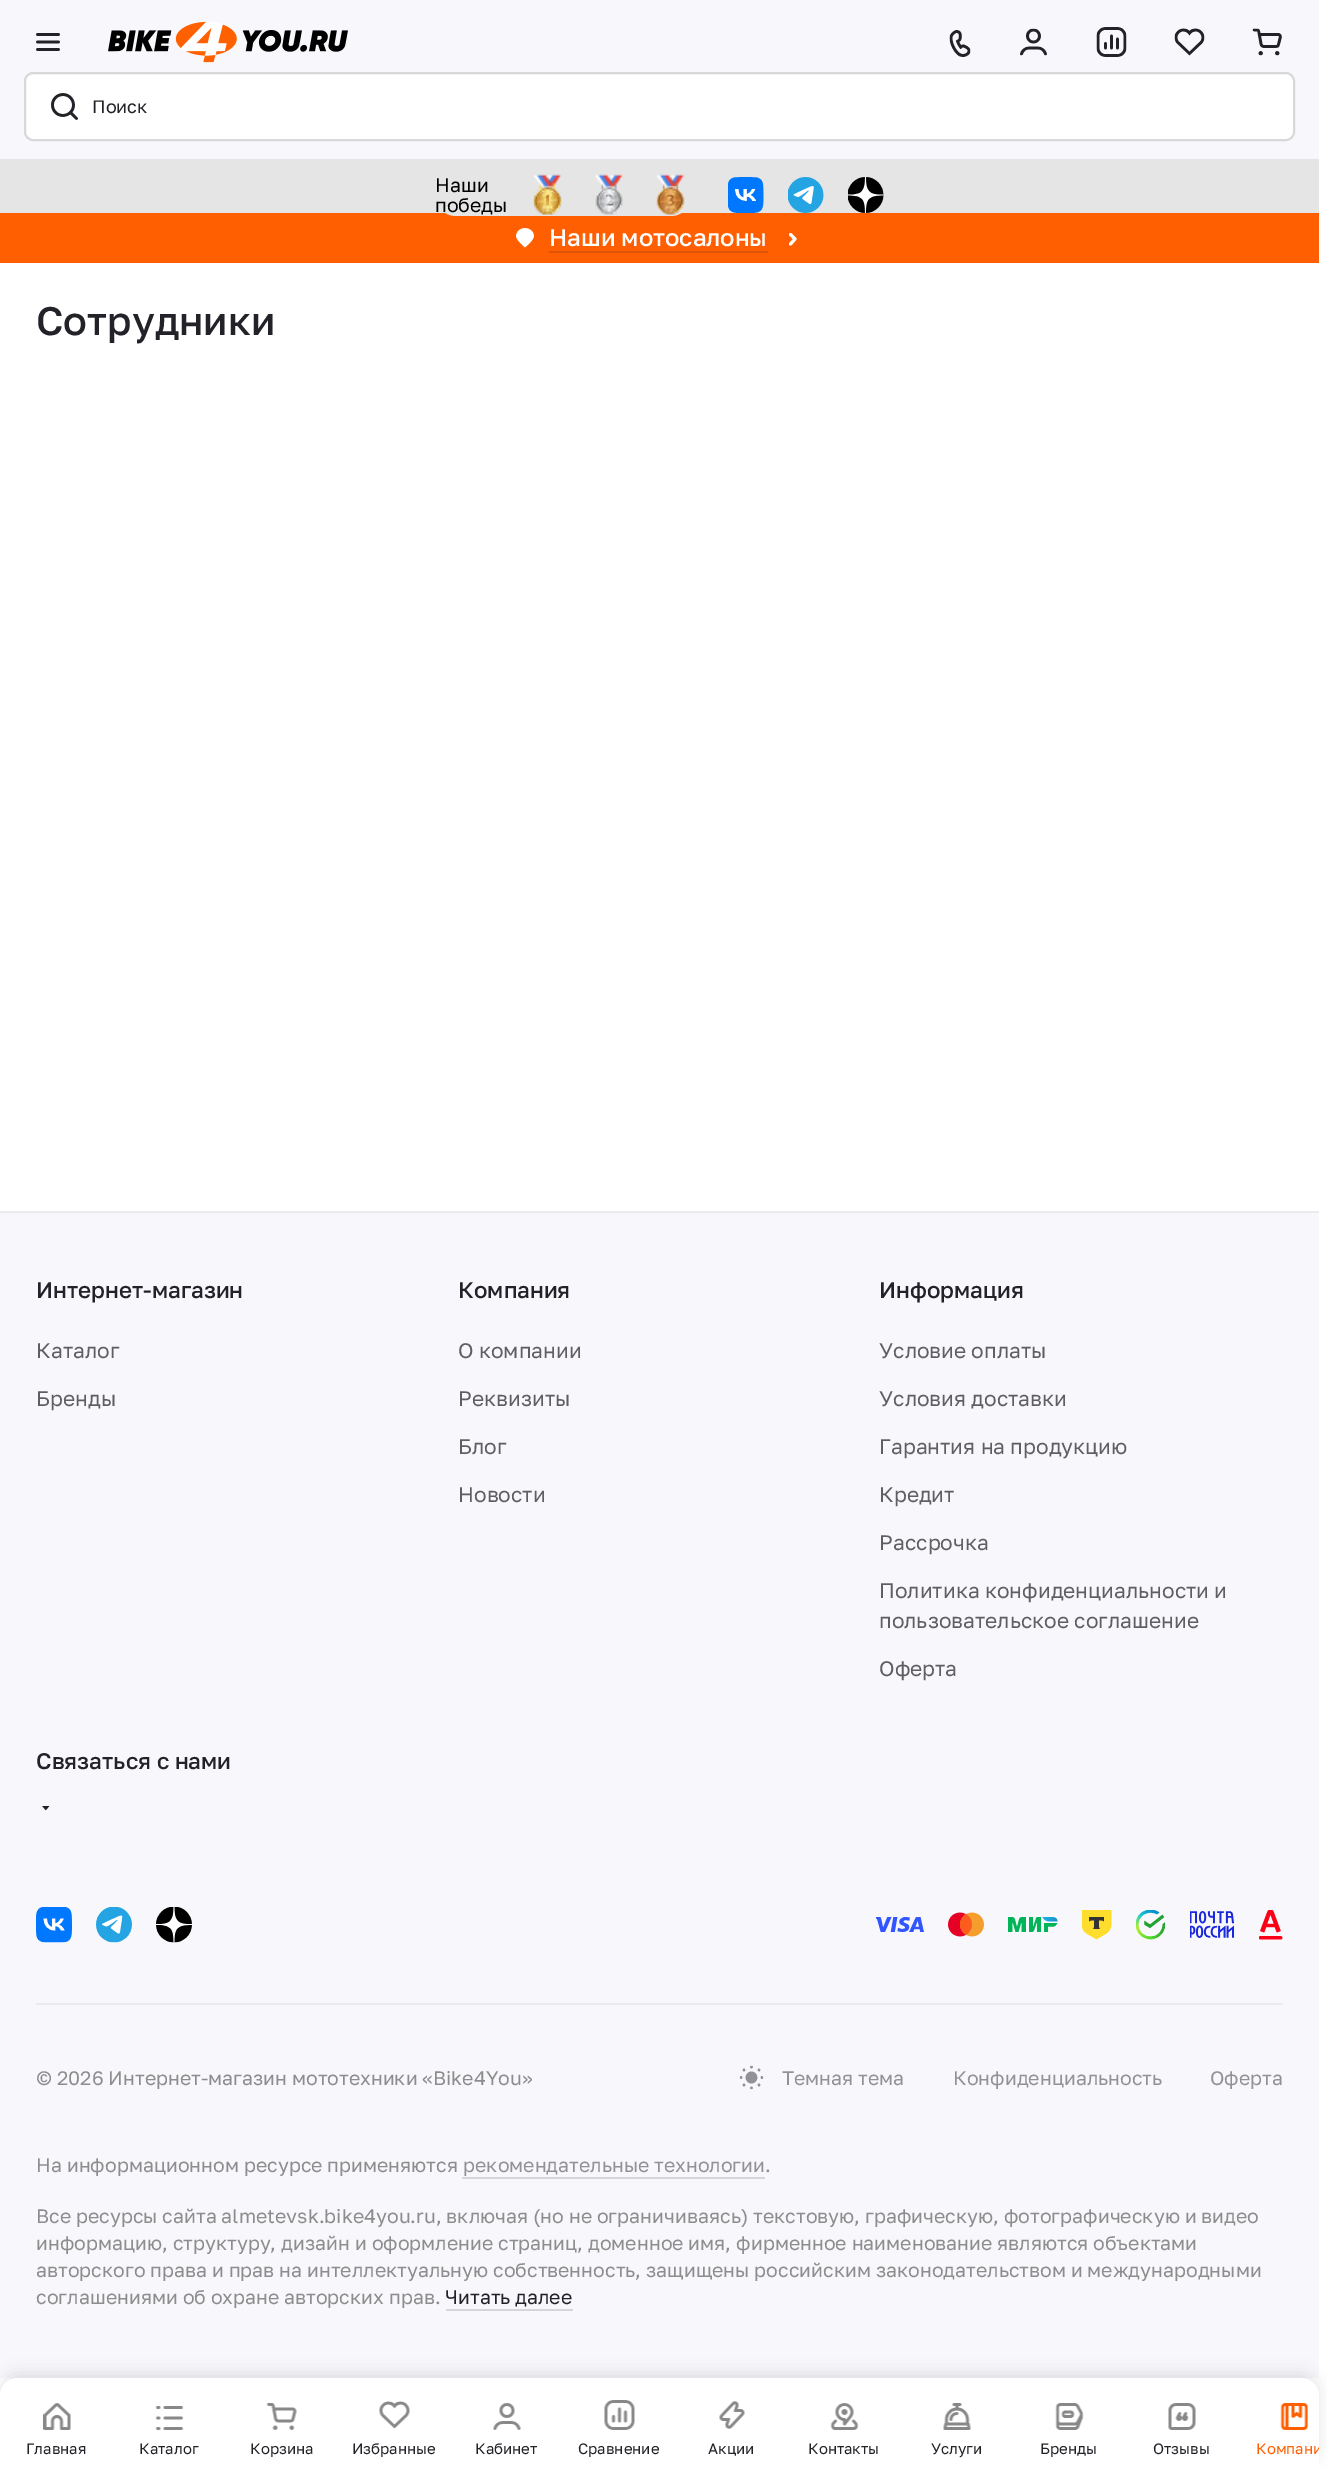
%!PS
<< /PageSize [1327 2468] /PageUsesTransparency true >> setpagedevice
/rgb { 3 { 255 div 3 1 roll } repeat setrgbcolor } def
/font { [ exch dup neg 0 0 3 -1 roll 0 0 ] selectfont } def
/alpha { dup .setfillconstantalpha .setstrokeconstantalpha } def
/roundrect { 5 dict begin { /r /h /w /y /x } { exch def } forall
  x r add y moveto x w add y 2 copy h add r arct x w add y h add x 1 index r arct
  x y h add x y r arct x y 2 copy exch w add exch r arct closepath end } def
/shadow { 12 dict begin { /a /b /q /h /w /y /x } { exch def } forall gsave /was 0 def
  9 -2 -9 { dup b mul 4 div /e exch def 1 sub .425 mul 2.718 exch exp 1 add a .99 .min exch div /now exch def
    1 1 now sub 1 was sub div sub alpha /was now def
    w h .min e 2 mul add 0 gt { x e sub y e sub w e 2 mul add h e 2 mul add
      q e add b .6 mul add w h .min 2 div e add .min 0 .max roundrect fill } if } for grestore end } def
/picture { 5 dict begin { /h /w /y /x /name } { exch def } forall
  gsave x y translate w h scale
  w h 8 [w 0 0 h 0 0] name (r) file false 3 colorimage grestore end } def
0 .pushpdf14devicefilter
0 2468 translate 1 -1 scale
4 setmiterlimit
255 255 255 rgb
0 0 1327 2468 rectfill
248 248 252 rgb
0 0 1319 159 rectfill
(img/1.rgb) 36 33 24 18 picture
(img/2.rgb) 108 21 240 42 picture
(img/3.rgb) 949 30 22 27 picture
(img/4.rgb) 1020 28 27 28 picture
(img/5.rgb) 1096 27 31 30 picture
(img/6.rgb) 1174 28 31 28 picture
(img/7.rgb) 1252 28 30 28 picture
255 255 255 rgb
24 72 1271 69 9 roundrect fill
251 251 251 rgb
33 75 moveto 1286 75 lineto 1290 75 1293 78 1293 82 curveto 1293 78 1289 74 1285 74 curveto 34 74 lineto 30 74 26 78 26 82 curveto 26 78 29 75 33 75 curveto closepath fill
215 216 218 rgb
2 setlinewidth
25 73 1269 67 8 roundrect stroke
(img/8.rgb) 51 93 27 27 picture
229 229 229 rgb
0 159 1319 54 rectfill
255 95 0 rgb
0 213 1319 50 rectfill
229 229 229 rgb
435 174 257 42 21 roundrect fill
(img/9.rgb) 533 174 29 41 picture
(img/10.rgb) 595 174 28 41 picture
(img/11.rgb) 656 174 29 41 picture
(img/12.rgb) 728 177 36 36 picture
(img/13.rgb) 788 177 36 36 picture
(img/14.rgb) 848 177 36 36 picture
(img/15.rgb) 516 228 18 20 picture
220 85 6 rgb
549 251 219 2 rectfill
255 255 255 rgb
3 setlinewidth
1 setlinecap
1 setlinejoin
790.5 244 moveto 795 239 lineto 790.5 234.5 lineto stroke
248 248 252 rgb
0 1213 1319 1165 rectfill
235 235 238 rgb
0 1211 1319 2 rectfill
(img/16.rgb) 42 1806 8 5 picture
(img/17.rgb) 36 1907 36 36 picture
(img/18.rgb) 96 1907 36 36 picture
(img/19.rgb) 156 1907 36 36 picture
(img/20.rgb) 876 1917 48 15 picture
(img/21.rgb) 948 1912 36 25 picture
(img/22.rgb) 1008 1917 50 15 picture
(img/23.rgb) 1082 1910 30 30 picture
(img/24.rgb) 1136 1910 30 30 picture
(img/25.rgb) 1190 1911 45 27 picture
(img/26.rgb) 1259 1910 24 30 picture
36 2003 1247 2 rectfill
(img/27.rgb) 739 2065 25 25 picture
214 214 218 rgb
462 2177 303 2 rectfill
446 2309 127 2 rectfill
0 0 0 rgb
0 2373 1319 92 18 7.5 0.1 shadow
255 255 255 rgb
18 2378 moveto 1301 2378 lineto 1311 2378 1319 2386 1319 2396 curveto 1319 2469 lineto 0 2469 lineto 0 2396 lineto 0 2386 8 2378 18 2378 curveto closepath fill
(img/28.rgb) 43 2403 28 27 picture
(img/29.rgb) 155 2406 29 24 picture
(img/30.rgb) 266 2403 31 27 picture
(img/31.rgb) 379 2401 31 28 picture
(img/32.rgb) 493 2403 28 27 picture
(img/33.rgb) 604 2400 31 30 picture
(img/34.rgb) 719 2401 26 28 picture
(img/35.rgb) 830 2403 29 27 picture
(img/36.rgb) 943 2403 28 27 picture
(img/37.rgb) 1055 2403 29 27 picture
(img/38.rgb) 1168 2403 28 27 picture
(img/39.rgb) 1280 2403 28 27 picture
/GolosText-Regular 18 font
34 34 40 rgb
92 113 moveto (Поиск) show
/GolosText-Regular 19.5 font
0 0 0 rgb
435 192 moveto (Наши) show
435 212 moveto (победы) show
/GolosText-Medium 24 font
255 255 255 rgb
549 246 moveto (Наши мотосалоны) show
/GolosText-Medium 39.75 font
34 34 40 rgb
36 335 moveto (Сотрудники) show
/GolosText-Medium 22.5 font
36 1298 moveto (Интернет-магазин) show
/GolosText-Regular 21 font
94 94 99 rgb
36 1358 moveto (Каталог) show
36 1406 moveto (Бренды) show
/GolosText-Medium 22.5 font
34 34 40 rgb
458 1298 moveto (Компания) show
/GolosText-Regular 21 font
94 94 99 rgb
[
  [(О компании) 458 1358]
  [(Реквизиты) 458 1406]
  [(Блог) 458 1454]
  [(Новости) 458 1502]
] { aload pop moveto show } forall
/GolosText-Medium 22.5 font
34 34 40 rgb
879 1298 moveto (Информация) show
/GolosText-Regular 21 font
94 94 99 rgb
[
  [(Условие оплаты) 879 1358]
  [(Условия доставки) 879 1406]
  [(Гарантия на продукцию) 879 1454]
  [(Кредит) 879 1502]
  [(Рассрочка) 879 1550]
  [(Политика конфиденциальности и) 879 1598]
  [(пользовательское соглашение) 879 1628]
  [(Оферта) 879 1676]
] { aload pop moveto show } forall
/GolosText-Medium 22.5 font
34 34 40 rgb
36 1769 moveto (Связаться с нами) show
/GolosText-Regular 19.5 font
141 141 141 rgb
36 2085 moveto (© 2026 Интернет-магазин мототехники «Bike4You») show
145 145 150 rgb
[
  [(Темная тема) 782 2085]
  [(Конфиденциальность) 953 2085]
  [(Оферта) 1210 2085]
] { aload pop moveto show } forall
141 141 141 rgb
36 2172 moveto (На информационном ресурсе применяются) show
145 145 150 rgb
463 2172 moveto (рекомендательные технологии) show
141 141 141 rgb
[
  [(.) 765 2172]
  [(Все ресурсы сайта almetevsk.bike4you.ru, включая \(но не ограничиваясь\) текстовую, графическую, фотографическую и видео) 36 2223]
  [(информацию, структуру, дизайн и оформление страниц, доменное имя, фирменное наименование являются объектами) 36 2250]
  [(авторского права и прав на интеллектуальную собственность, защищены российским законодательством и международными) 36 2277]
  [(соглашениями об охране авторских прав.) 36 2304]
] { aload pop moveto show } forall
34 34 40 rgb
445 2304 moveto (Читать далее) show
/GolosText-Regular 15 font
[
  [(Главная) 26 2454]
  [(Каталог) 139 2454]
  [(Корзина) 250 2454]
  [(Избранные) 352 2454]
  [(Кабинет) 475 2454]
  [(Сравнение) 578 2454]
  [(Акции) 708 2454]
  [(Контакты) 808 2454]
  [(Услуги) 931 2454]
  [(Бренды) 1040 2454]
  [(Отзывы) 1153 2454]
] { aload pop moveto show } forall
gsave
1242 2438 77 21 rectclip
255 95 0 rgb
1256 2454 moveto (Компани) show
grestore
.poppdf14devicefilter showpage
